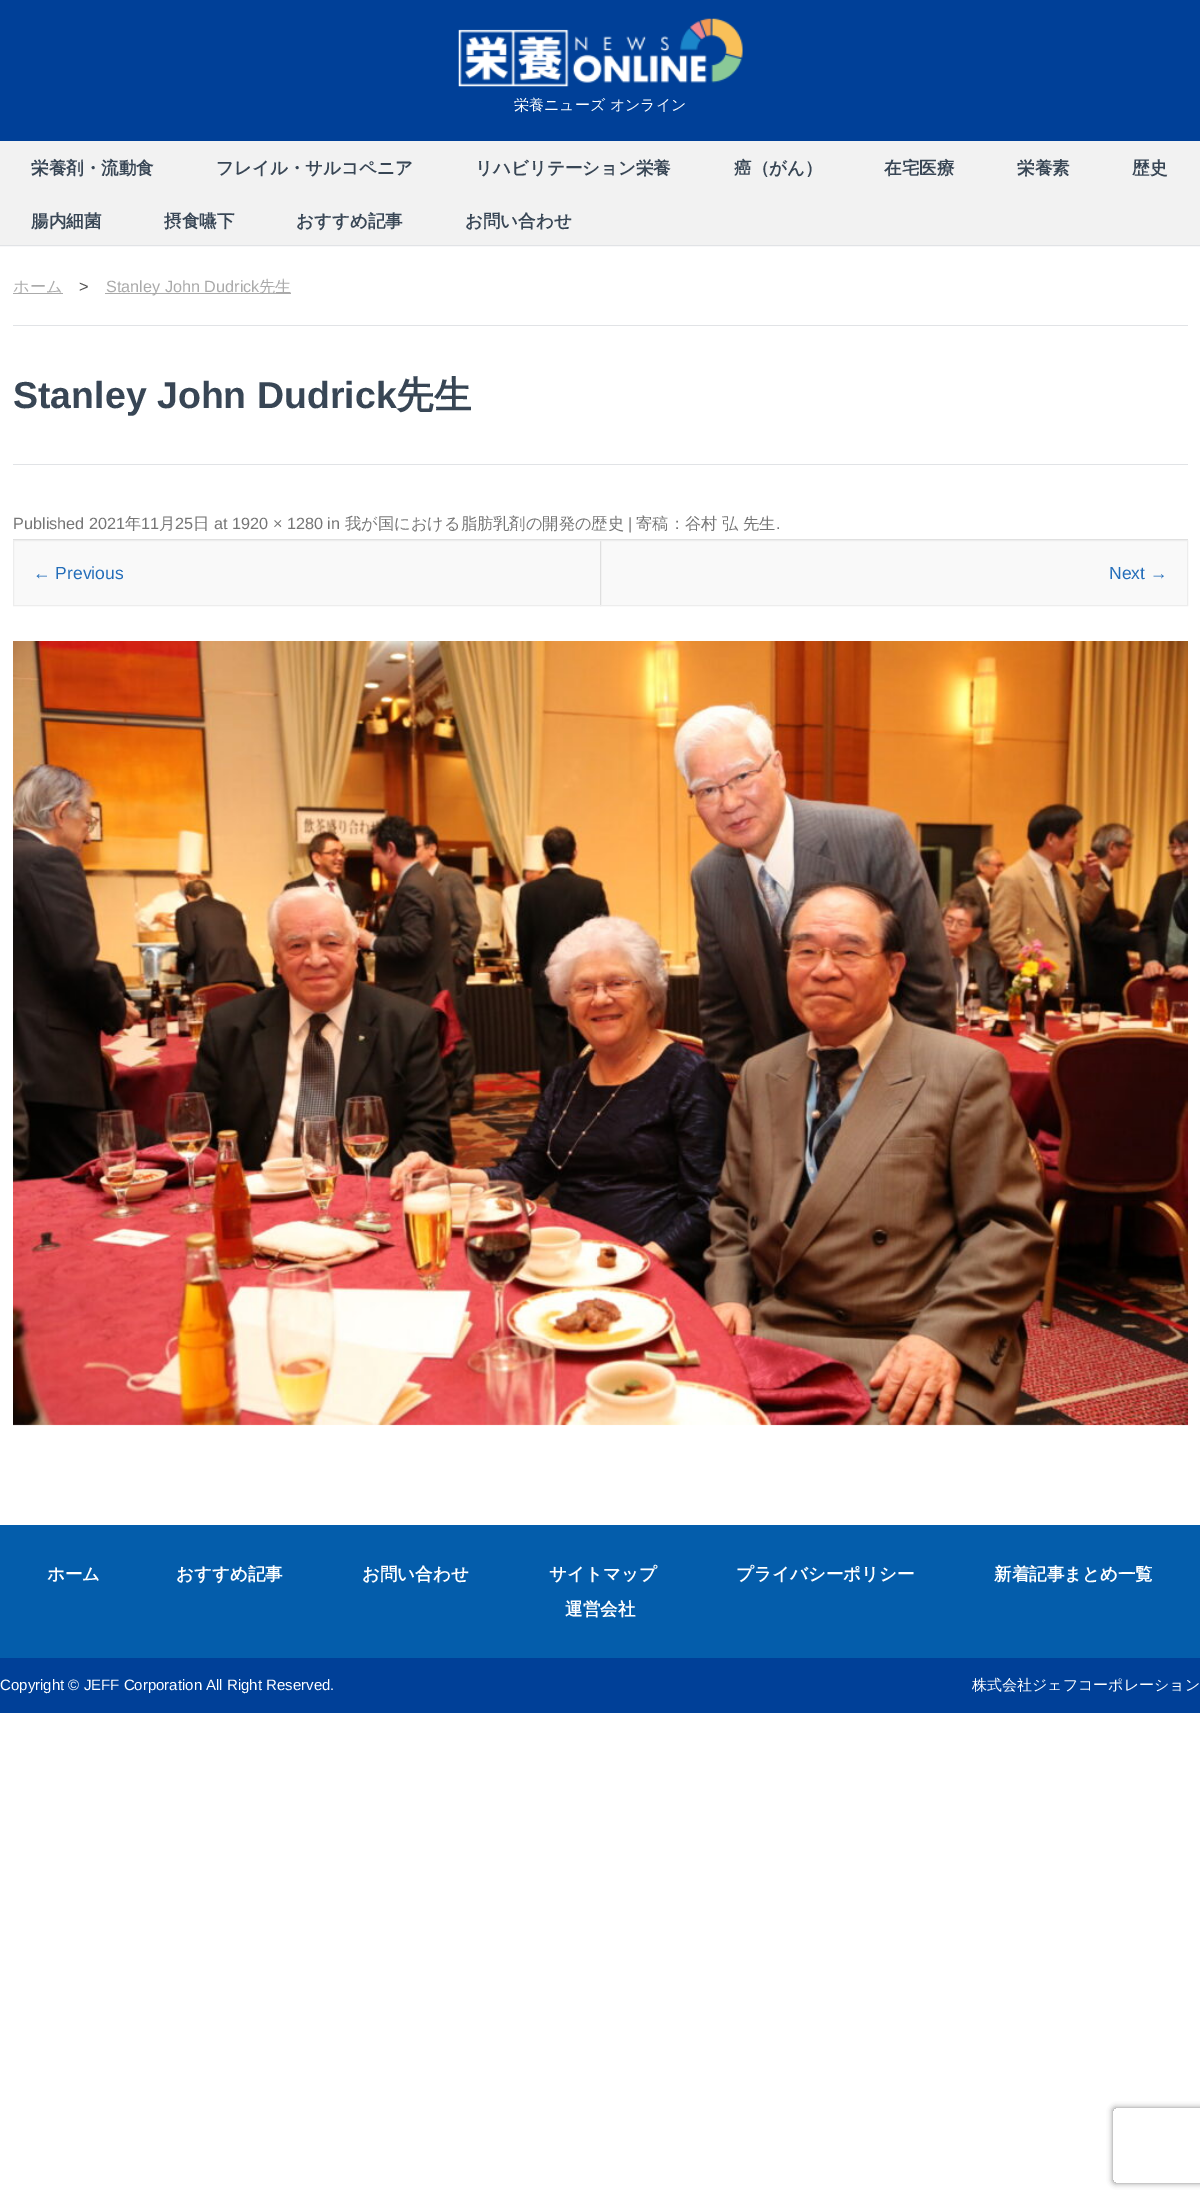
%!PS
<< /PageSize [1200 2199] /PageUsesTransparency true >> setpagedevice
/rgb { 3 { 255 div 3 1 roll } repeat setrgbcolor } def
/font { [ exch dup neg 0 0 3 -1 roll 0 0 ] selectfont } def
/alpha { dup .setfillconstantalpha .setstrokeconstantalpha } def
/roundrect { 5 dict begin { /r /h /w /y /x } { exch def } forall
  x r add y moveto x w add y 2 copy h add r arct x w add y h add x 1 index r arct
  x y h add x y r arct x y 2 copy exch w add exch r arct closepath end } def
/shadow { 12 dict begin { /a /b /q /h /w /y /x } { exch def } forall gsave /was 0 def
  9 -2 -9 { dup b mul 4 div /e exch def 1 sub .425 mul 2.718 exch exp 1 add a .99 .min exch div /now exch def
    1 1 now sub 1 was sub div sub alpha /was now def
    w h .min e 2 mul add 0 gt { x e sub y e sub w e 2 mul add h e 2 mul add
      q e add b .6 mul add w h .min 2 div e add .min 0 .max roundrect fill } if } for grestore end } def
/picture { 5 dict begin { /h /w /y /x /name } { exch def } forall
  gsave x y translate w h scale
  w h 8 [w 0 0 h 0 0] name (r) file false 3 colorimage grestore end } def
0 .pushpdf14devicefilter
0 2199 translate 1 -1 scale
4 setmiterlimit
255 255 255 rgb
0 0 1200 2199 rectfill
0 64 152 rgb
0 0 1200 141 rectfill
(img/1.rgb) 458 18 285 69 picture
242 242 242 rgb
0 141 1200 104 rectfill
(img/2.rgb) 0 245 1200 2 picture
[
  [13 293 50 1 170 170 170]
  [105 293 186 1 170 170 170]
  [13 325 1175 1 225 227 230]
  [13 464 1175 1 225 227 230]
  [13 539 1175 1 224 224 224]
  [14 541 1173 64 249 249 249]
] { aload pop rgb rectfill } forall
(img/3.rgb) 600 541 2 66 picture
237 237 237 rgb
13.5 540.5 1174 65 rectstroke
(img/4.rgb) 13 641 1175 785 picture
4 93 171 rgb
0 1525 1200 133 rectfill
0 64 152 rgb
0 1658 1200 55 rectfill
gsave
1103 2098 moveto 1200 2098 lineto 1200 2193 lineto 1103 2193 lineto closepath 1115.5 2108 moveto 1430.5 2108 lineto 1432 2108 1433 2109 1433 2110.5 curveto 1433 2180.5 lineto 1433 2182 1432 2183 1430.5 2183 curveto 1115.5 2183 lineto 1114 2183 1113 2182 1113 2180.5 curveto 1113 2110.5 lineto 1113 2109 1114 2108 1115.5 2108 curveto closepath eoclip newpath
128 128 128 rgb
1113 2108 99 75 2.5 3 1 shadow
grestore
/WenQuanYiZenHei-Medium 15 font
255 255 255 rgb
514 110 moveto (栄養ニューズ オンライン) show
/WenQuanYiZenHei-Bold 17.5 font
56 70 85 rgb
[
  [(栄養剤・流動食) 31 174]
  [(フレイル・サルコペニア) 216 174]
  [(リハビリテーション栄養) 475 174]
  [(癌（がん）) 734 174]
  [(在宅医療) 884 174]
  [(栄養素) 1017 174]
  [(歴史) 1132 174]
  [(腸内細菌) 31 227]
  [(摂食嚥下) 164 227]
  [(おすすめ記事) 296 227]
  [(お問い合わせ) 465 227]
] { aload pop moveto show } forall
/WenQuanYiZenHei-Medium 16.25 font
170 170 170 rgb
13 292 moveto (ホーム) show
/LiberationSans-Regular 16.25 font
80 79 79 rgb
79 292 moveto (>) show
170 170 170 rgb
106 292 moveto (Stanley John Dudrick) show
/WenQuanYiZenHei-Medium 16.25 font
259 292 moveto (先生) show
/LiberationSans-Bold 37.5 font
56 70 85 rgb
13 408 moveto (Stanley John Dudrick) show
/WenQuanYiZenHei-Bold 37.5 font
396 408 moveto (先生) show
/LiberationSans-Regular 16.25 font
117 117 117 rgb
13 529 moveto (Published 2021) show
/WenQuanYiZenHei-Medium 16.25 font
125 529 moveto (年) show
/LiberationSans-Regular 16.25 font
141 529 moveto (11) show
/WenQuanYiZenHei-Medium 16.25 font
159 529 moveto (月) show
/LiberationSans-Regular 16.25 font
175 529 moveto (25) show
/WenQuanYiZenHei-Medium 16.25 font
193 529 moveto (日) show
/LiberationSans-Regular 16.25 font
214 529 moveto (at 1920 × 1280 in) show
/WenQuanYiZenHei-Medium 16.25 font
345 529 moveto (我が国における脂肪乳剤の開発の歴史) show
/LiberationSans-Regular 16.25 font
628 529 moveto (|) show
/WenQuanYiZenHei-Medium 16.25 font
636 529 moveto (寄稿：谷村 弘 先生) show
/LiberationSans-Regular 16.25 font
776 529 moveto (.) show
/LiberationSans-Regular 17.5 font
35 109 185 rgb
33 579 moveto (← Previous) show
1109 579 moveto (Next →) show
/WenQuanYiZenHei-Bold 17.5 font
255 255 255 rgb
[
  [(ホーム) 47 1580]
  [(おすすめ記事) 176 1580]
  [(お問い合わせ) 362 1580]
  [(サイトマップ) 549 1580]
  [(プライバシーポリシー) 736 1580]
  [(新着記事まとめ一覧) 994 1580]
  [(運営会社) 565 1615]
] { aload pop moveto show } forall
/LiberationSans-Regular 15 font
0 1690 moveto (Copyright © JEFF Corporation All Right Reserved.) show
/WenQuanYiZenHei-Medium 15 font
972 1690 moveto (株式会社ジェフコーポレーション) show
.poppdf14devicefilter showpage
